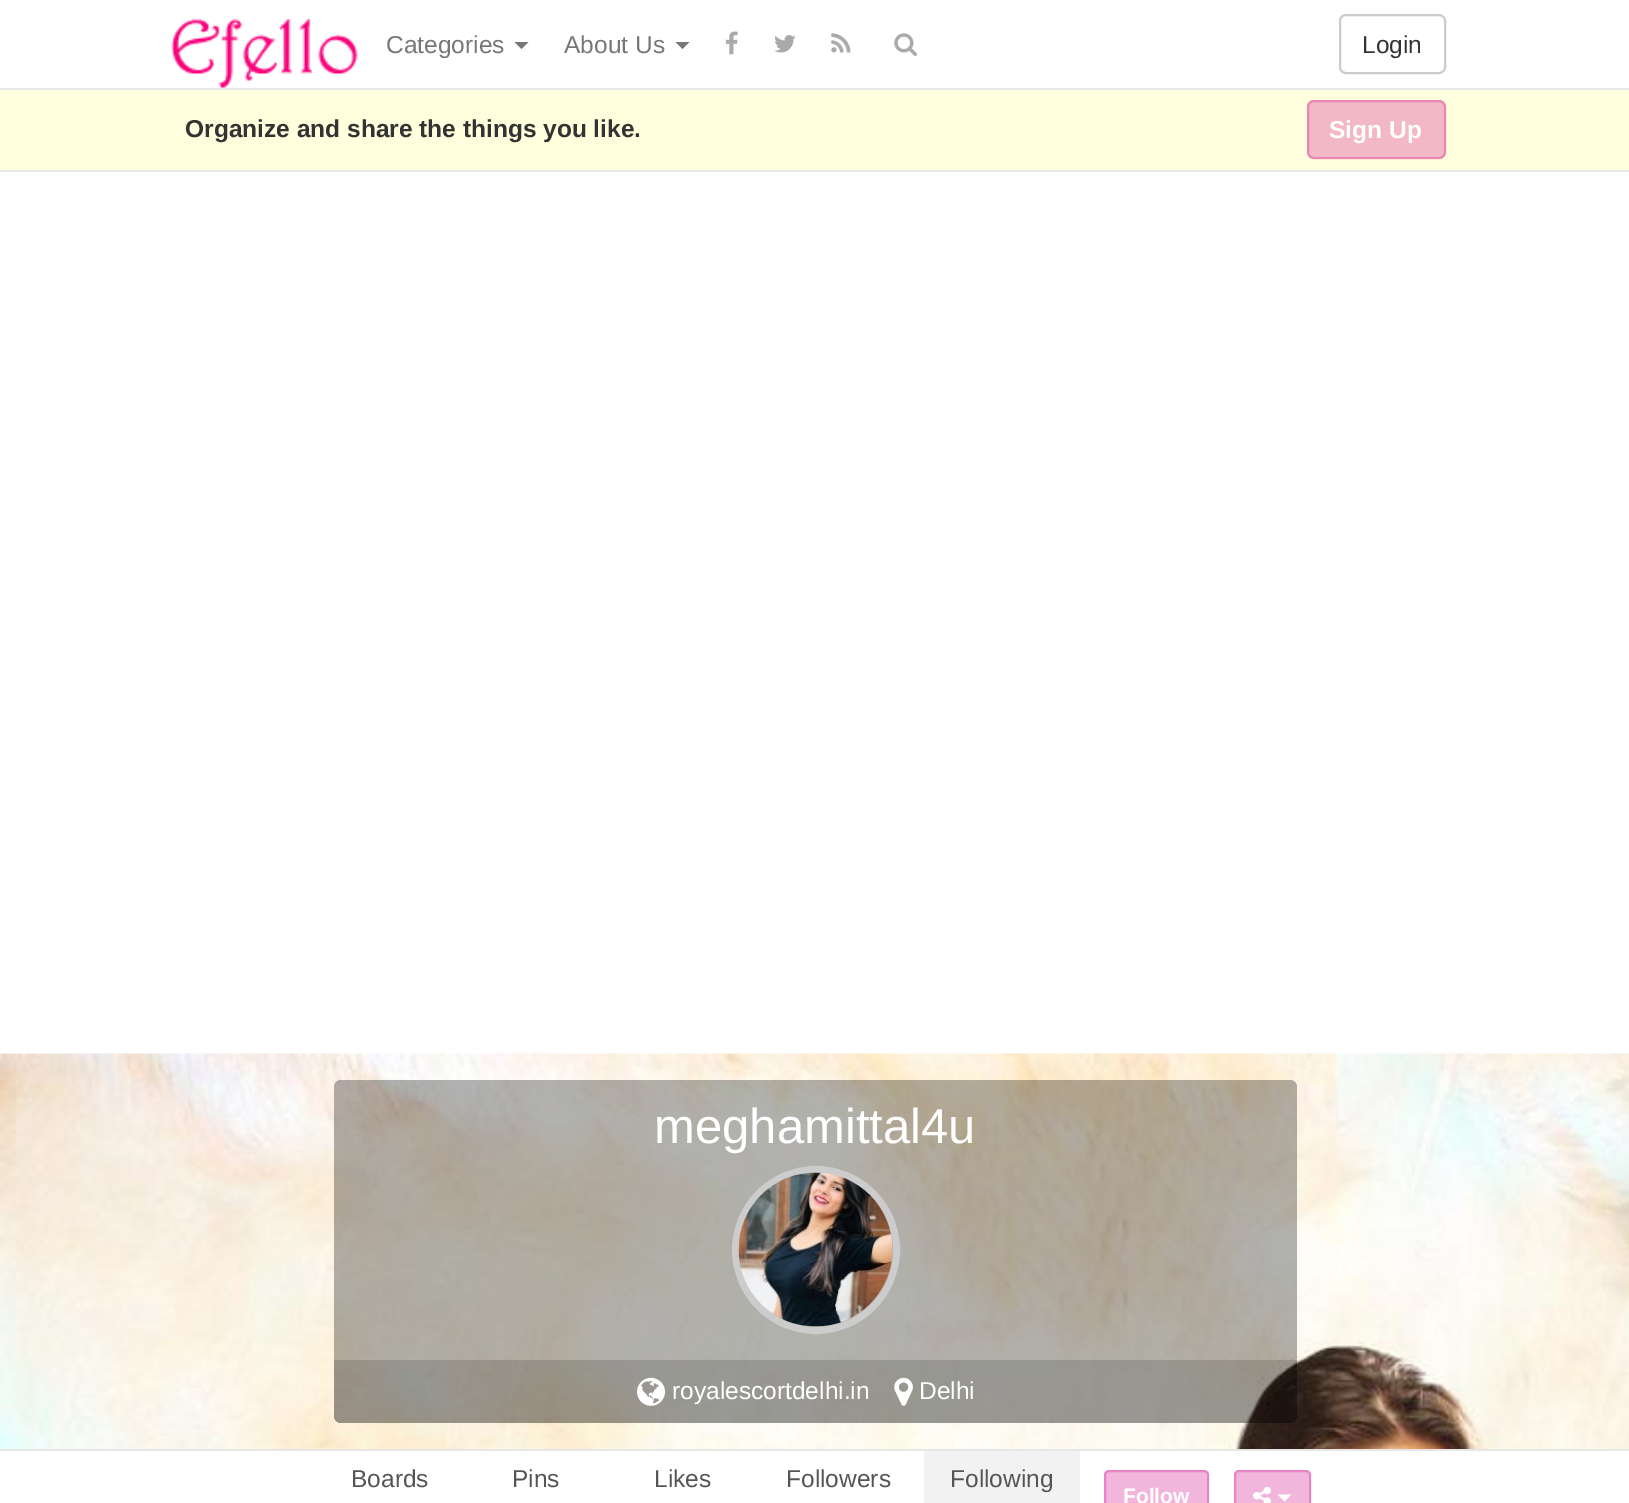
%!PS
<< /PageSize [1629 1503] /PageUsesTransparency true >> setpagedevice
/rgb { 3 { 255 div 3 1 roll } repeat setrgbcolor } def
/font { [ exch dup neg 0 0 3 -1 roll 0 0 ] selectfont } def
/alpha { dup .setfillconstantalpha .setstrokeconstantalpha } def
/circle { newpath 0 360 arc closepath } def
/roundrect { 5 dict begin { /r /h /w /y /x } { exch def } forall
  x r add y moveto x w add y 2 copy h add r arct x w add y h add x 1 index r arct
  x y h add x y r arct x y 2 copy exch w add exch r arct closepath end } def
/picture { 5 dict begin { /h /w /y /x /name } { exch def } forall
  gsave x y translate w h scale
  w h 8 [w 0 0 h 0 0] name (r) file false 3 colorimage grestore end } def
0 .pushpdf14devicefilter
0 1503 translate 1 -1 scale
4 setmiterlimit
255 255 255 rgb
0 0 1629 1503 rectfill
231 231 231 rgb
0 88 1629 2 rectfill
(img/1.rgb) 171 18 187 70 picture
119 119 119 rgb
514.5 42 moveto 528.5 42 lineto 521.5 49 lineto closepath fill
675.5 42 moveto 689.5 42 lineto 682.5 49 lineto closepath fill
(img/2.rgb) 725 31 13 24 picture
(img/3.rgb) 774 35 22 18 picture
(img/4.rgb) 831 33 20 20 picture
(img/5.rgb) 894 33 23 23 picture
204 204 204 rgb
2 setlinewidth
1340 15 105 58 6 roundrect stroke
255 255 221 rgb
0 90 1629 80 rectfill
231 231 231 rgb
0 170 1629 2 rectfill
243 184 197 rgb
1307 100 139 59 7 roundrect fill
0.28 alpha
212 0 137 rgb
1308 101 137 57 6 roundrect stroke
1 alpha
(img/6.rgb) 0 1053 1629 396 picture
0.3 alpha
0 0 0 rgb
341 1080 moveto 1290 1080 lineto 1294 1080 1297 1083 1297 1087 curveto 1297 1360 lineto 334 1360 lineto 334 1087 lineto 334 1083 337 1080 341 1080 curveto closepath fill
1 alpha
204 204 204 rgb
7 setlinewidth
816 1250 80.5 circle stroke
(img/7.rgb) 738 1172 155 155 picture
0.4 alpha
0 0 0 rgb
334 1360 moveto 1297 1360 lineto 1297 1416 lineto 1297 1420 1294 1423 1290 1423 curveto 341 1423 lineto 337 1423 334 1420 334 1416 curveto closepath fill
1 alpha
(img/8.rgb) 637 1377 28 29 picture
(img/9.rgb) 894 1377 19 29 picture
231 231 231 rgb
0 1449 1629 2 rectfill
242 242 242 rgb
924 1451 156 52 rectfill
242 182 221 rgb
1104 1470 105 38 5 roundrect fill
0.28 alpha
212 0 137 rgb
2 setlinewidth
1105 1471 103 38 4 roundrect stroke
1 alpha
242 182 221 rgb
1234 1470 77 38 5 roundrect fill
0.28 alpha
212 0 137 rgb
1235 1471 75 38 4 roundrect stroke
1 alpha
(img/10.rgb) 1253 1486 18 17 picture
255 255 255 rgb
1277.5 1494.5 moveto 1291.5 1494.5 lineto 1284.5 1501.5 lineto closepath fill
/LiberationSans-Regular 24.5 font
119 119 119 rgb
386 53 moveto (Categories) show
564 53 moveto (About Us) show
51 51 51 rgb
1362 53 moveto (Login) show
/LiberationSans-Bold 24.5 font
185 137 moveto (Organize and share the things you like.) show
255 255 255 rgb
1329 138 moveto (Sign Up) show
/LiberationSans-Regular 49 font
654 1143 moveto (meghamittal4u) show
/LiberationSans-Regular 24.5 font
672 1399 moveto (royalescortdelhi.in) show
919 1399 moveto (Delhi) show
85 85 85 rgb
[
  [(Boards) 351 1487]
  [(Pins) 512 1487]
  [(Likes) 654 1487]
  [(Followers) 786 1487]
  [(Following) 950 1487]
] { aload pop moveto show } forall
/LiberationSans-Bold 21 font
255 255 255 rgb
1123 1503 moveto (Follow) show
.poppdf14devicefilter showpage
